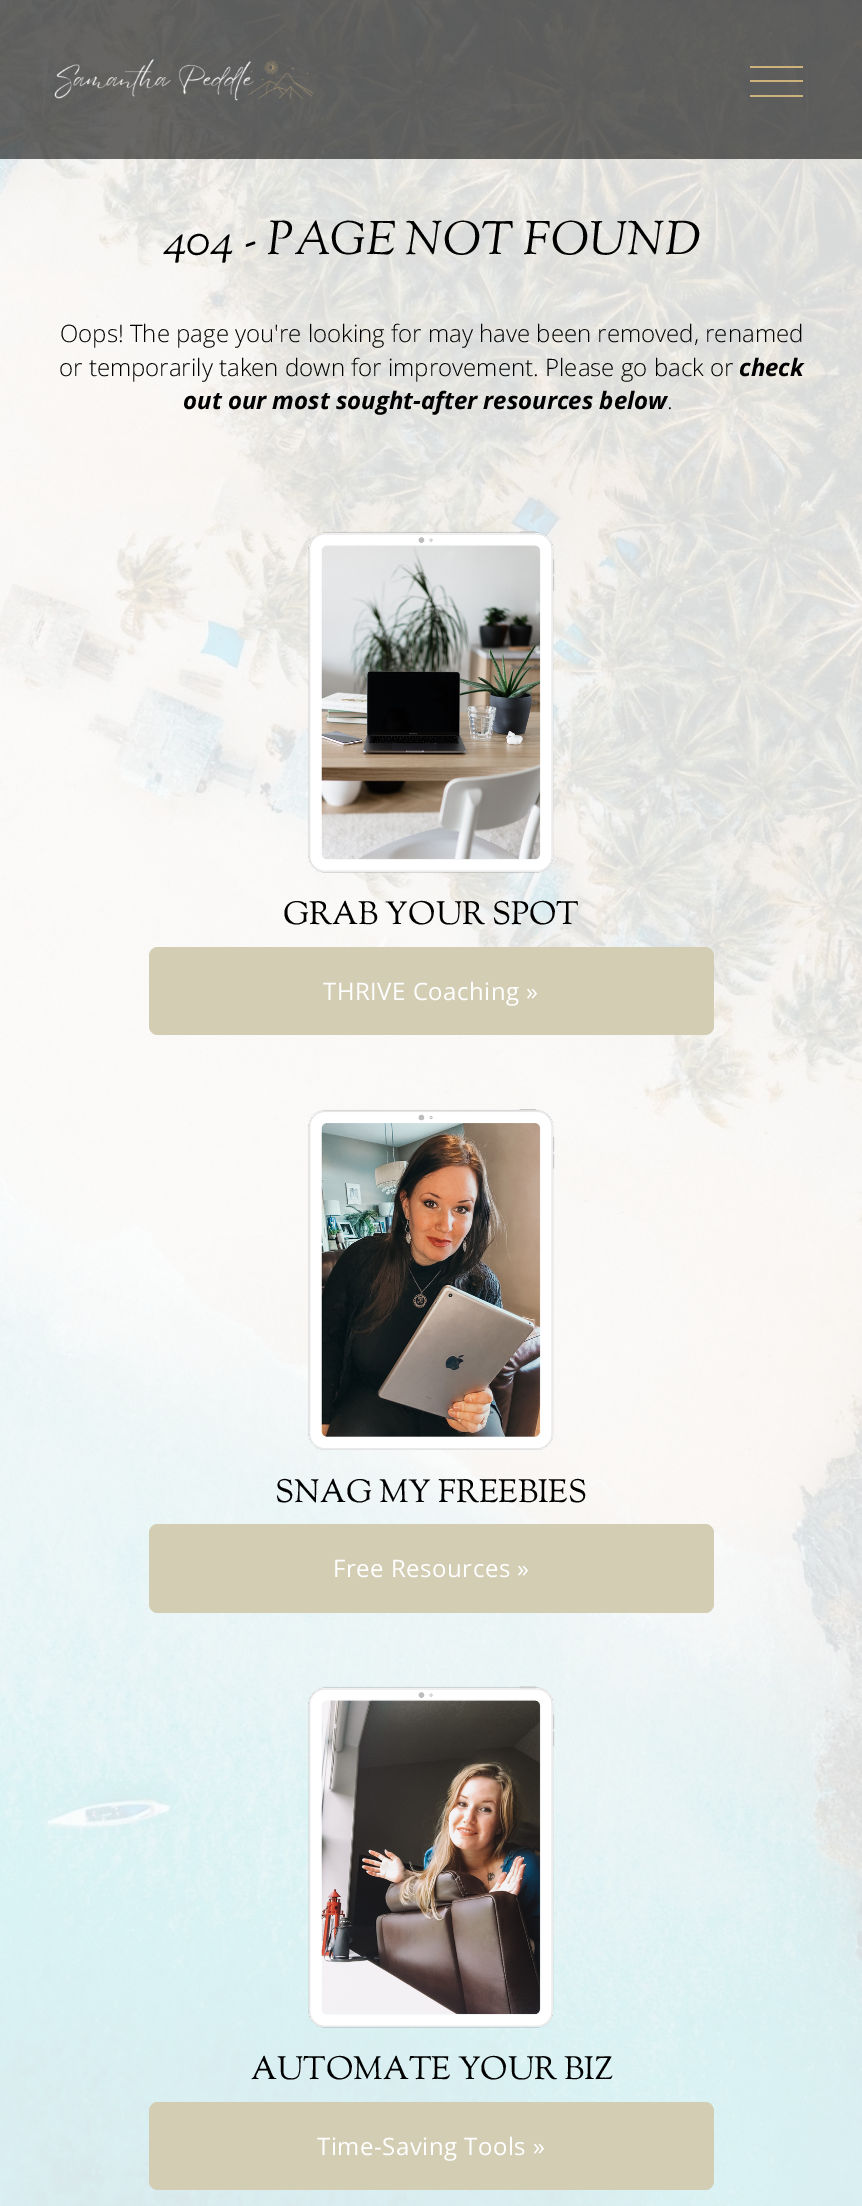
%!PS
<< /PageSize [862 2206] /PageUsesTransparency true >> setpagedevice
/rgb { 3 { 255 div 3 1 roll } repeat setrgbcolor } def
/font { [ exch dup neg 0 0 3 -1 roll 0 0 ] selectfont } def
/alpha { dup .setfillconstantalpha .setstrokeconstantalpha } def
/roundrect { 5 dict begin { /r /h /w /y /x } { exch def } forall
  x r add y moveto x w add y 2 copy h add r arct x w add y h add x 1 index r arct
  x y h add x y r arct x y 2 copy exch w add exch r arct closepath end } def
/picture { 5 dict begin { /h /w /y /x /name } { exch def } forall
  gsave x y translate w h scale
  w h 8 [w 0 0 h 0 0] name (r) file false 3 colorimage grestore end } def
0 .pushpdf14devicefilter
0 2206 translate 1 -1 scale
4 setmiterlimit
255 255 255 rgb
0 0 862 2206 rectfill
(img/2.rgb) 0 0 862 2206 picture
0.58 alpha
0 0 0 rgb
0 0 862 159 rectfill
1 alpha
(img/1.rgb) 54 59 260 42 picture
[
  [750 66 53 2 205 178 124]
  [750 80 53 2 205 178 124]
  [750 95 53 2 205 178 124]
] { aload pop rgb rectfill } forall
(img/3.rgb) 308 531 247 342 picture
211 205 180 rgb
149 947 565 88 9 roundrect fill
(img/4.rgb) 308 1109 247 341 picture
149 1524 565 89 9 roundrect fill
(img/5.rgb) 308 1686 247 342 picture
149 2102 565 88 9 roundrect fill
/SortsMillGoudy-Italic 46.75 font
0 0 0 rgb
163 254 moveto (404 - PAGE NOT FOUND) show
/OpenSans-Light 24 font
60 342 moveto (Oops! The page you're looking for may have been removed, renamed) show
59 376 moveto (or temporarily taken down for improvement. Please go back or) show
/OpenSans-BoldItalic 24 font
739 376 moveto (check) show
183 409 moveto (out our most sought-after resources below) show
/OpenSans-Light 24 font
667 409 moveto (.) show
/SortsMillGoudy-Regular 32.1 font
283 924 moveto (GRAB YOUR SPOT) show
/OpenSans-Regular 24 font
255 255 255 rgb
323 1000 moveto 0.5 0 (THRIVE Coaching ») ashow
/SortsMillGoudy-Regular 32.1 font
0 0 0 rgb
275 1502 moveto (SNAG MY FREEBIES) show
/OpenSans-Regular 24 font
255 255 255 rgb
333 1577 moveto 0.5 0 (Free Resources ») ashow
/SortsMillGoudy-Regular 32.1 font
0 0 0 rgb
251 2079 moveto (AUTOMATE YOUR BIZ) show
/OpenSans-Regular 24 font
255 255 255 rgb
317 2155 moveto 0.5 0 (Time-Saving Tools ») ashow
.poppdf14devicefilter showpage
